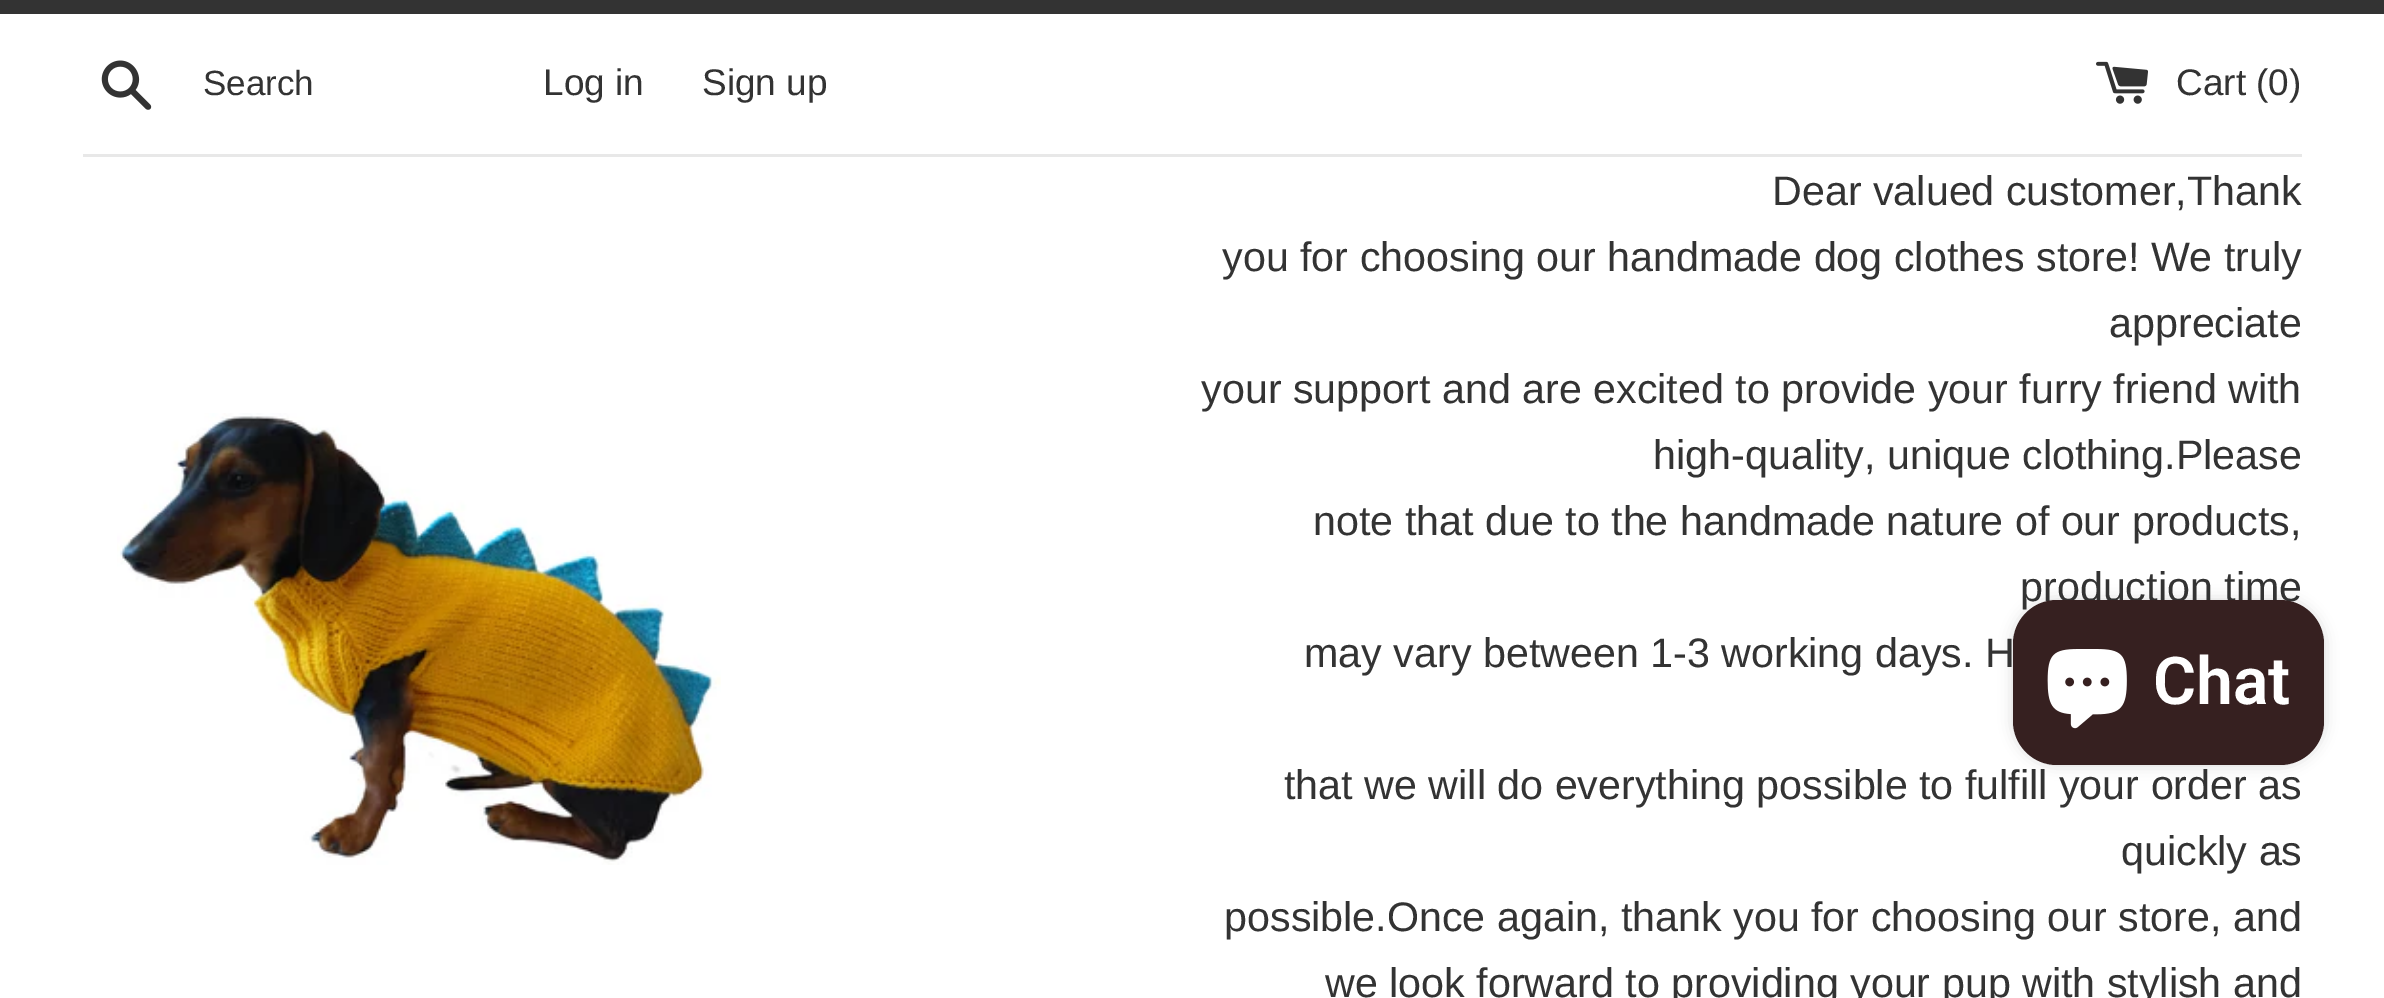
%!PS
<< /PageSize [2384 998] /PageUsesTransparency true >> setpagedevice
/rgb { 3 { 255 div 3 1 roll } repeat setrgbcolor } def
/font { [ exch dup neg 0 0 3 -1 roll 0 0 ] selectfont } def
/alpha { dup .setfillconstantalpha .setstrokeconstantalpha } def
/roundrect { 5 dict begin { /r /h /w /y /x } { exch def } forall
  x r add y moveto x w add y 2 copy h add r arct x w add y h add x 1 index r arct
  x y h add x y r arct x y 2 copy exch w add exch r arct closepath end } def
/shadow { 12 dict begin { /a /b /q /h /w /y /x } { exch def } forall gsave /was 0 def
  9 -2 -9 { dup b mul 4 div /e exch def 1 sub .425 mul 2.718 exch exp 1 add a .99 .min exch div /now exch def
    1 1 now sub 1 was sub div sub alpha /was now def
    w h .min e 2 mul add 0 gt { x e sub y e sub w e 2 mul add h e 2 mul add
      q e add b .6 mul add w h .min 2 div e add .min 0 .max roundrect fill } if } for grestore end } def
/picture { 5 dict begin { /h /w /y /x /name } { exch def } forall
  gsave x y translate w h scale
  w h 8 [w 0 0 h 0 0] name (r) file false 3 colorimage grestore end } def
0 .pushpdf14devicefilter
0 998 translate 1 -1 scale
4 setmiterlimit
255 255 255 rgb
0 0 2384 998 rectfill
51 51 51 rgb
0 0 2384 14 rectfill
(img/1.rgb) 101 60 51 50 picture
(img/2.rgb) 2096 61 52 43 picture
232 232 232 rgb
83 154 2219 3 rectfill
(img/3.rgb) 117 413 604 452 picture
0 0 0 rgb
2013 600 311 165 44 7 0.15 shadow
/LiberationSans-Regular 35 font
51 51 51 rgb
203 95 moveto (Search) show
/LiberationSans-Regular 37 font
[
  [(Log in) 543 95]
  [(Sign up) 702 95]
  [(Cart \(0\)) 2176 95]
] { aload pop moveto show } forall
/LiberationSans-Regular 41.25 font
[
  [(Dear valued customer,Thank) 1772 205]
  [(you for choosing our handmade dog clothes store! We truly) 1222 271]
  [(appreciate) 2109 337]
  [(your support and are excited to provide your furry friend with) 1201 403]
  [(high-quality, unique clothing.Please) 1653 469]
  [(note that due to the handmade nature of our products,) 1313 535]
  [(production time) 2020 601]
  [(may vary between 1-3 working days. H) 1304 667]
  [(that we will do everything possible to fulfill your order as) 1284 799]
  [(quickly as) 2121 865]
  [(possible.Once again, thank you for choosing our store, and) 1224 931]
  [(we look forward to providing your pup with stylish and) 1325 997]
] { aload pop moveto show } forall
54 32 32 rgb
2013 600 311 165 44 roundrect fill
(img/4.rgb) 2047 649 80 80 picture
/Roboto-SemiBold 66 font
255 255 255 rgb
2153 704 moveto (Chat) show
.poppdf14devicefilter showpage
